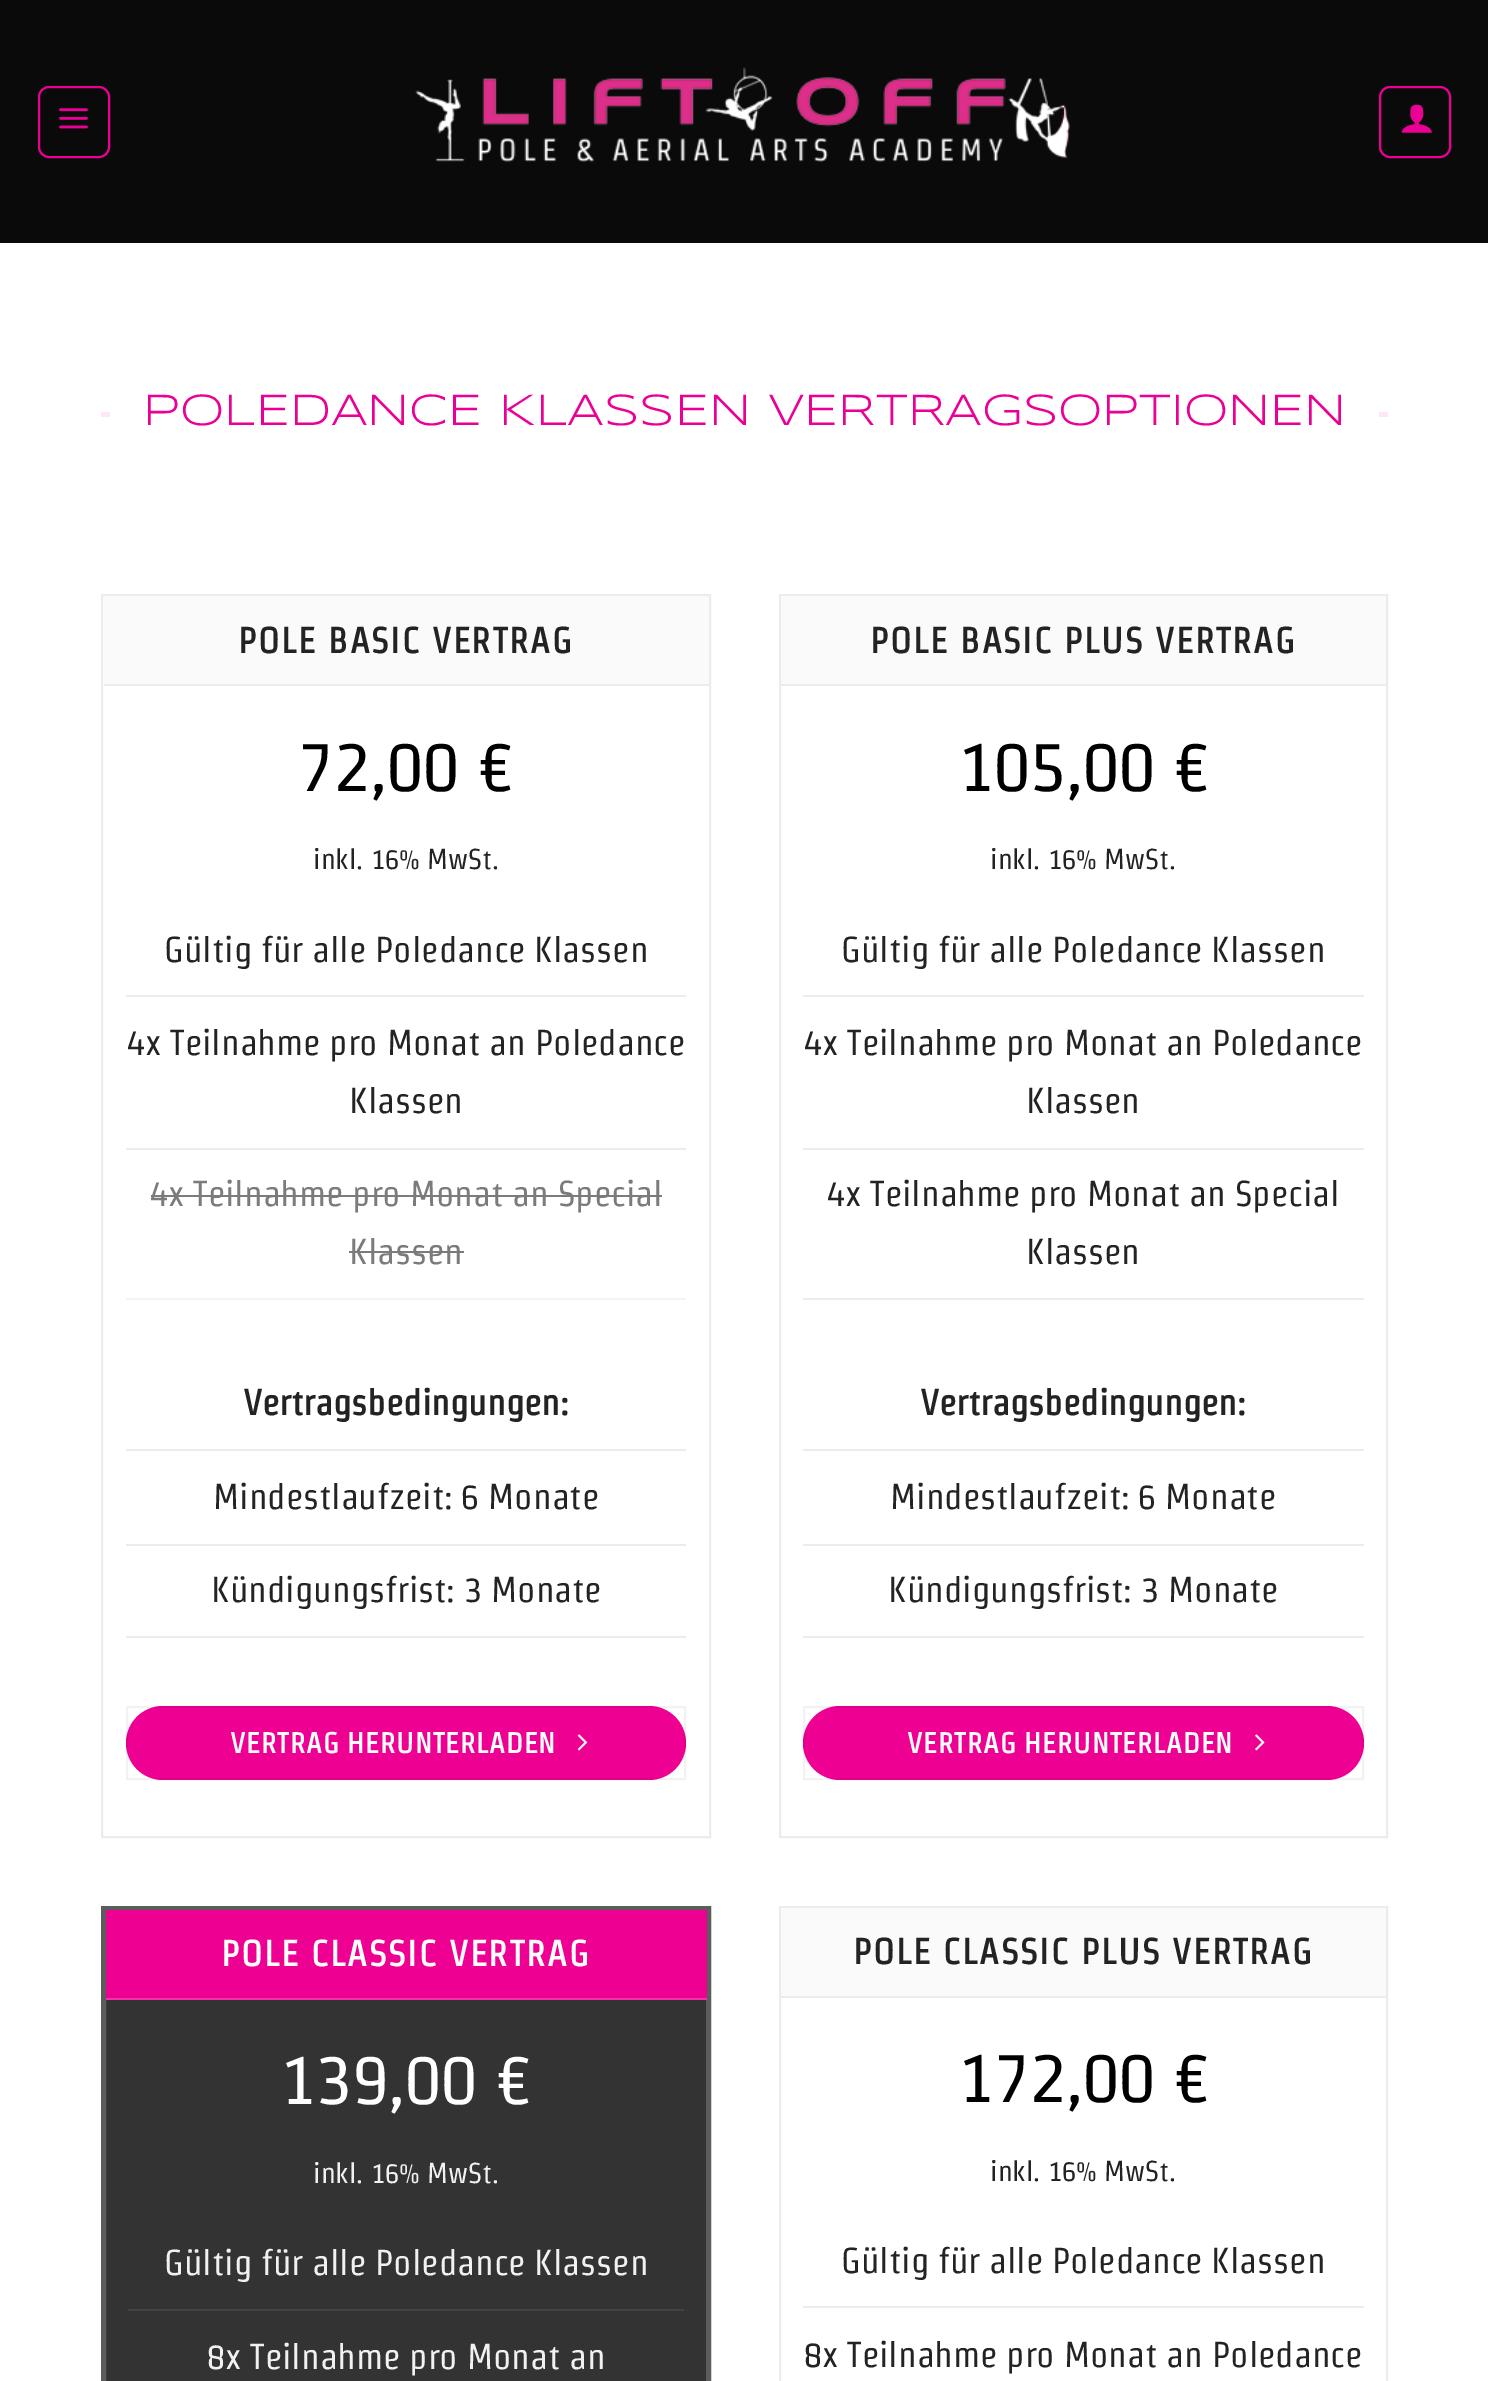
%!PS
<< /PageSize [1488 2381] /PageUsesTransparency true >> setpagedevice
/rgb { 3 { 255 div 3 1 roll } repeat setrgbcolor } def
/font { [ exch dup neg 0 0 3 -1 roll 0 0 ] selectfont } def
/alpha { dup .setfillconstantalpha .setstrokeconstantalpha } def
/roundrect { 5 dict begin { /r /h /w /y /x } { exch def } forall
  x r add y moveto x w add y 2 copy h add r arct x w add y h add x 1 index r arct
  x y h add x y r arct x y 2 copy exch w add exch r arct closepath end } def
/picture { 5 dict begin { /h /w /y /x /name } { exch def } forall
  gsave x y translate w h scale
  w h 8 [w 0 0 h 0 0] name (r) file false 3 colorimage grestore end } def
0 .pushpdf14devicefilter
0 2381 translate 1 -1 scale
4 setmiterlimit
255 255 255 rgb
0 0 1488 2381 rectfill
10 10 10 rgb
0 0 1488 243 rectfill
235 0 150 rgb
2 setlinewidth
39 87 70 70 10 roundrect stroke
(img/1.rgb) 59 108 29 21 picture
(img/2.rgb) 415 67 655 95 picture
1380 87 70 70 10 roundrect stroke
(img/3.rgb) 1401 104 31 29 picture
253 230 245 rgb
101 412 9 5 rectfill
1379 412 9 5 rectfill
236 236 236 rgb
102 595 608 1242 rectstroke
[
  [104 596 605 88 250 250 250]
  [104 684 605 2 236 236 236]
  [126 995 560 2 236 236 236]
  [126 1148 560 2 236 236 236]
  [126 1298 560 2 244 244 244]
  [151 1195 511 2 123 123 123]
  [349 1251 115 2 123 123 123]
  [126 1449 560 2 236 236 236]
  [126 1544 560 2 236 236 236]
  [126 1636 560 2 236 236 236]
] { aload pop rgb rectfill } forall
237 0 146 rgb
126 1706 560 74 37 roundrect fill
0.05 alpha
0 0 0 rgb
127 1707 558 72 rectstroke
1 alpha
(img/4.rgb) 577 1734 11 17 picture
236 236 236 rgb
780 595 607 1242 rectstroke
[
  [781 596 605 88 250 250 250]
  [781 684 605 2 236 236 236]
  [803 995 561 2 236 236 236]
  [803 1148 561 2 236 236 236]
  [803 1298 561 2 236 236 236]
  [803 1449 561 2 236 236 236]
  [803 1544 561 2 236 236 236]
  [803 1636 561 2 236 236 236]
] { aload pop rgb rectfill } forall
237 0 146 rgb
803 1706 561 74 37 roundrect fill
0.05 alpha
0 0 0 rgb
804 1707 559 72 rectstroke
1 alpha
(img/5.rgb) 1255 1734 10 17 picture
51 51 51 rgb
106 2000 600 381 rectfill
92 92 92 rgb
5 setlinewidth
103.5 1908.5 605 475 rectstroke
[
  [106 1910 601 88 237 0 146]
  [106 1998 601 2 241 51 168]
  [128 2309 556 2 67 67 67]
] { aload pop rgb rectfill } forall
236 236 236 rgb
2 setlinewidth
780 1907 607 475 rectstroke
[
  [781 1908 605 88 250 250 250]
  [781 1996 605 2 236 236 236]
  [803 2306 561 2 236 236 236]
] { aload pop rgb rectfill } forall
/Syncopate-Regular 45 font
235 0 150 rgb
143 425 moveto (POLEDANCE KLASSEN VERTRAGSOPTIONEN) show
/Strait-Bold 36 font
35 35 35 rgb
238 653 moveto 1.8 0 (POLE BASIC VERTRAG) ashow
/Strait-Regular 72 font
0 0 0 rgb
298 791 moveto (72,00 €) show
/Strait-Regular 28.75 font
35 35 35 rgb
313 869 moveto (inkl. 16% MwSt.) show
/Strait-Regular 36 font
[
  [(Gültig für alle Poledance Klassen) 164 962]
  [(4x Teilnahme pro Monat an Poledance) 127 1055]
  [(Klassen) 349 1113]
] { aload pop moveto show } forall
123 123 123 rgb
150 1206 moveto (4x Teilnahme pro Monat an Special) show
349 1264 moveto (Klassen) show
/Strait-Bold 36 font
35 35 35 rgb
243 1415 moveto (Vertragsbedingungen:) show
/Strait-Regular 36 font
213 1509 moveto (Mindestlaufzeit: 6 Monate) show
211 1602 moveto (Kündigungsfrist: 3 Monate) show
/Strait-Bold 28.75 font
255 255 255 rgb
230 1753 moveto 0.9 0 (VERTRAG HERUNTERLADEN) ashow
/Strait-Bold 36 font
35 35 35 rgb
870 653 moveto 1.8 0 (POLE BASIC PLUS VERTRAG) ashow
/Strait-Regular 72 font
0 0 0 rgb
958 791 moveto (105,00 €) show
/Strait-Regular 28.75 font
35 35 35 rgb
990 869 moveto (inkl. 16% MwSt.) show
/Strait-Regular 36 font
[
  [(Gültig für alle Poledance Klassen) 841 962]
  [(4x Teilnahme pro Monat an Poledance) 804 1055]
  [(Klassen) 1026 1113]
  [(4x Teilnahme pro Monat an Special) 827 1206]
  [(Klassen) 1026 1264]
] { aload pop moveto show } forall
/Strait-Bold 36 font
920 1415 moveto (Vertragsbedingungen:) show
/Strait-Regular 36 font
890 1509 moveto (Mindestlaufzeit: 6 Monate) show
888 1602 moveto (Kündigungsfrist: 3 Monate) show
/Strait-Bold 28.75 font
255 255 255 rgb
907 1753 moveto 0.9 0 (VERTRAG HERUNTERLADEN) ashow
/Strait-Bold 36 font
221 1966 moveto 1.8 0 (POLE CLASSIC VERTRAG) ashow
/Strait-Regular 72 font
280 2104 moveto (139,00 €) show
/Strait-Regular 28.75 font
241 241 241 rgb
313 2183 moveto (inkl. 16% MwSt.) show
/Strait-Regular 36 font
164 2275 moveto (Gültig für alle Poledance Klassen) show
207 2369 moveto (8x Teilnahme pro Monat an) show
/Strait-Bold 36 font
35 35 35 rgb
853 1964 moveto 1.8 0 (POLE CLASSIC PLUS VERTRAG) ashow
/Strait-Regular 72 font
0 0 0 rgb
958 2102 moveto (172,00 €) show
/Strait-Regular 28.75 font
35 35 35 rgb
990 2181 moveto (inkl. 16% MwSt.) show
/Strait-Regular 36 font
841 2273 moveto (Gültig für alle Poledance Klassen) show
804 2367 moveto (8x Teilnahme pro Monat an Poledance) show
.poppdf14devicefilter showpage
